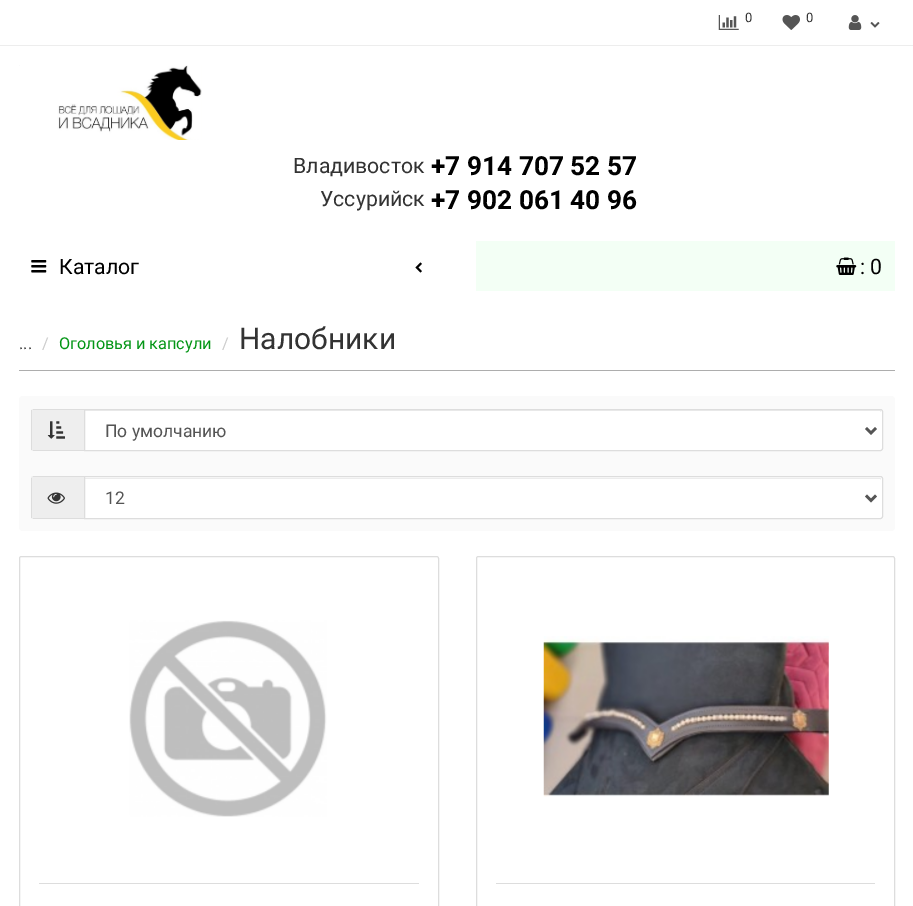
%!PS
<< /PageSize [913 906] >> setpagedevice
/rgb { 3 { 255 div 3 1 roll } repeat setrgbcolor } def
/font { [ exch dup neg 0 0 3 -1 roll 0 0 ] selectfont } def
/roundrect { 5 dict begin { /r /h /w /y /x } { exch def } forall
  x r add y moveto x w add y 2 copy h add r arct x w add y h add x 1 index r arct
  x y h add x y r arct x y 2 copy exch w add exch r arct closepath end } def
/picture { 5 dict begin { /h /w /y /x /name } { exch def } forall
  gsave x y translate w h scale
  w h 8 [w 0 0 h 0 0] name (r) file false 3 colorimage grestore end } def
0 906 translate 1 -1 scale
4 setmiterlimit
255 255 255 rgb
0 0 913 906 rectfill
237 237 237 rgb
0 45 913 1 rectfill
(img/1.rgb) 718 15 21 15 picture
(img/2.rgb) 782 15 18 15 picture
(img/3.rgb) 848 15 14 15 picture
(img/4.rgb) 870 22 10 6 picture
(img/5.rgb) 19 65 183 75 picture
(img/6.rgb) 31 260 16 13 picture
(img/7.rgb) 415 262 7 11 picture
243 255 245 rgb
476 241 419 50 rectfill
(img/8.rgb) 836 257 21 18 picture
173 173 173 rgb
19 370 876 1 rectfill
250 250 250 rgb
19 396 876 135 4 roundrect fill
238 238 238 rgb
33.5 409 moveto 84 409 lineto 84 451 lineto 33.5 451 lineto 32 451 31 450 31 448.5 curveto 31 411.5 lineto 31 410 32 409 33.5 409 curveto closepath fill
[
  [33 409 51 1 221 221 221]
  [33 450 51 1 221 221 221]
  [31 410 1 40 221 221 221]
] { aload pop rgb rectfill } forall
(img/9.rgb) 47 421 18 18 picture
255 255 255 rgb
84 409 moveto 880.5 409 lineto 882 409 883 410 883 411.5 curveto 883 448.5 lineto 883 450 882 451 880.5 451 curveto 84 451 lineto closepath fill
236 236 236 rgb
85 411 moveto 880 411 lineto 881 412 lineto 881 411 881 410 880 410 curveto 85 410 lineto closepath fill
221 221 221 rgb
84.5 409.5 moveto 880.5 409.5 lineto 881.5 409.5 882.5 410.5 882.5 411.5 curveto 882.5 448.5 lineto 882.5 449.5 881.5 450.5 880.5 450.5 curveto 84.5 450.5 lineto closepath stroke
85 85 85 rgb
2.5 setlinewidth
866 428 moveto 871 433 lineto 876 428 lineto stroke
238 238 238 rgb
33.5 476 moveto 84 476 lineto 84 519 lineto 33.5 519 lineto 32 519 31 518 31 516.5 curveto 31 478.5 lineto 31 477 32 476 33.5 476 curveto closepath fill
[
  [33 476 51 1 221 221 221]
  [33 518 51 1 221 221 221]
  [31 478 1 40 221 221 221]
] { aload pop rgb rectfill } forall
(img/10.rgb) 47 492 18 12 picture
255 255 255 rgb
84 476 moveto 880.5 476 lineto 882 476 883 477 883 478.5 curveto 883 516.5 lineto 883 518 882 519 880.5 519 curveto 84 519 lineto closepath fill
236 236 236 rgb
85 479 moveto 880 479 lineto 881 479 881 479 881 480 curveto 881 479 881 478 880 478 curveto 85 478 lineto closepath fill
221 221 221 rgb
1 setlinewidth
84.5 476.5 moveto 880.5 476.5 lineto 881.5 476.5 882.5 477.5 882.5 478.5 curveto 882.5 516.5 lineto 882.5 517.5 881.5 518.5 880.5 518.5 curveto 84.5 518.5 lineto closepath stroke
85 85 85 rgb
2.5 setlinewidth
866 495.5 moveto 871 500.5 lineto 876 495.5 lineto stroke
221 221 221 rgb
1 setlinewidth
19.5 556.5 419 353 2 roundrect stroke
(img/11.rgb) 129 620 198 197 picture
39 883 380 1 rectfill
476.5 556.5 418 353 2 roundrect stroke
(img/12.rgb) 543 636 286 161 picture
496 883 379 1 rectfill
/Roboto-Regular 13 font
51 51 51 rgb
745 22 moveto (0) show
806 22 moveto (0) show
/Roboto-Regular 21.25 font
293 173 moveto (Владивосток) show
/Roboto-Bold 26.25 font
0 0 0 rgb
431 175 moveto (+7 914 707 52 57) show
/Roboto-Regular 21.25 font
51 51 51 rgb
320 206 moveto (Уссурийск) show
/Roboto-Bold 26.25 font
0 0 0 rgb
431 209 moveto (+7 902 061 40 96) show
/Roboto-Regular 21.25 font
59 274 moveto (Каталог) show
860 274 moveto (: 0) show
/Roboto-Regular 16.25 font
51 51 51 rgb
19 349 moveto (...) show
204 204 204 rgb
42 349 moveto (/) show
3 150 21 rgb
59 349 moveto (Оголовья и капсули) show
204 204 204 rgb
222 349 moveto (/) show
/Roboto-Regular 30 font
51 51 51 rgb
239 349 moveto (Налобники) show
/Roboto-Regular 17.5 font
85 85 85 rgb
105 437 moveto (По умолчанию) show
105 504 moveto (12) show
showpage
